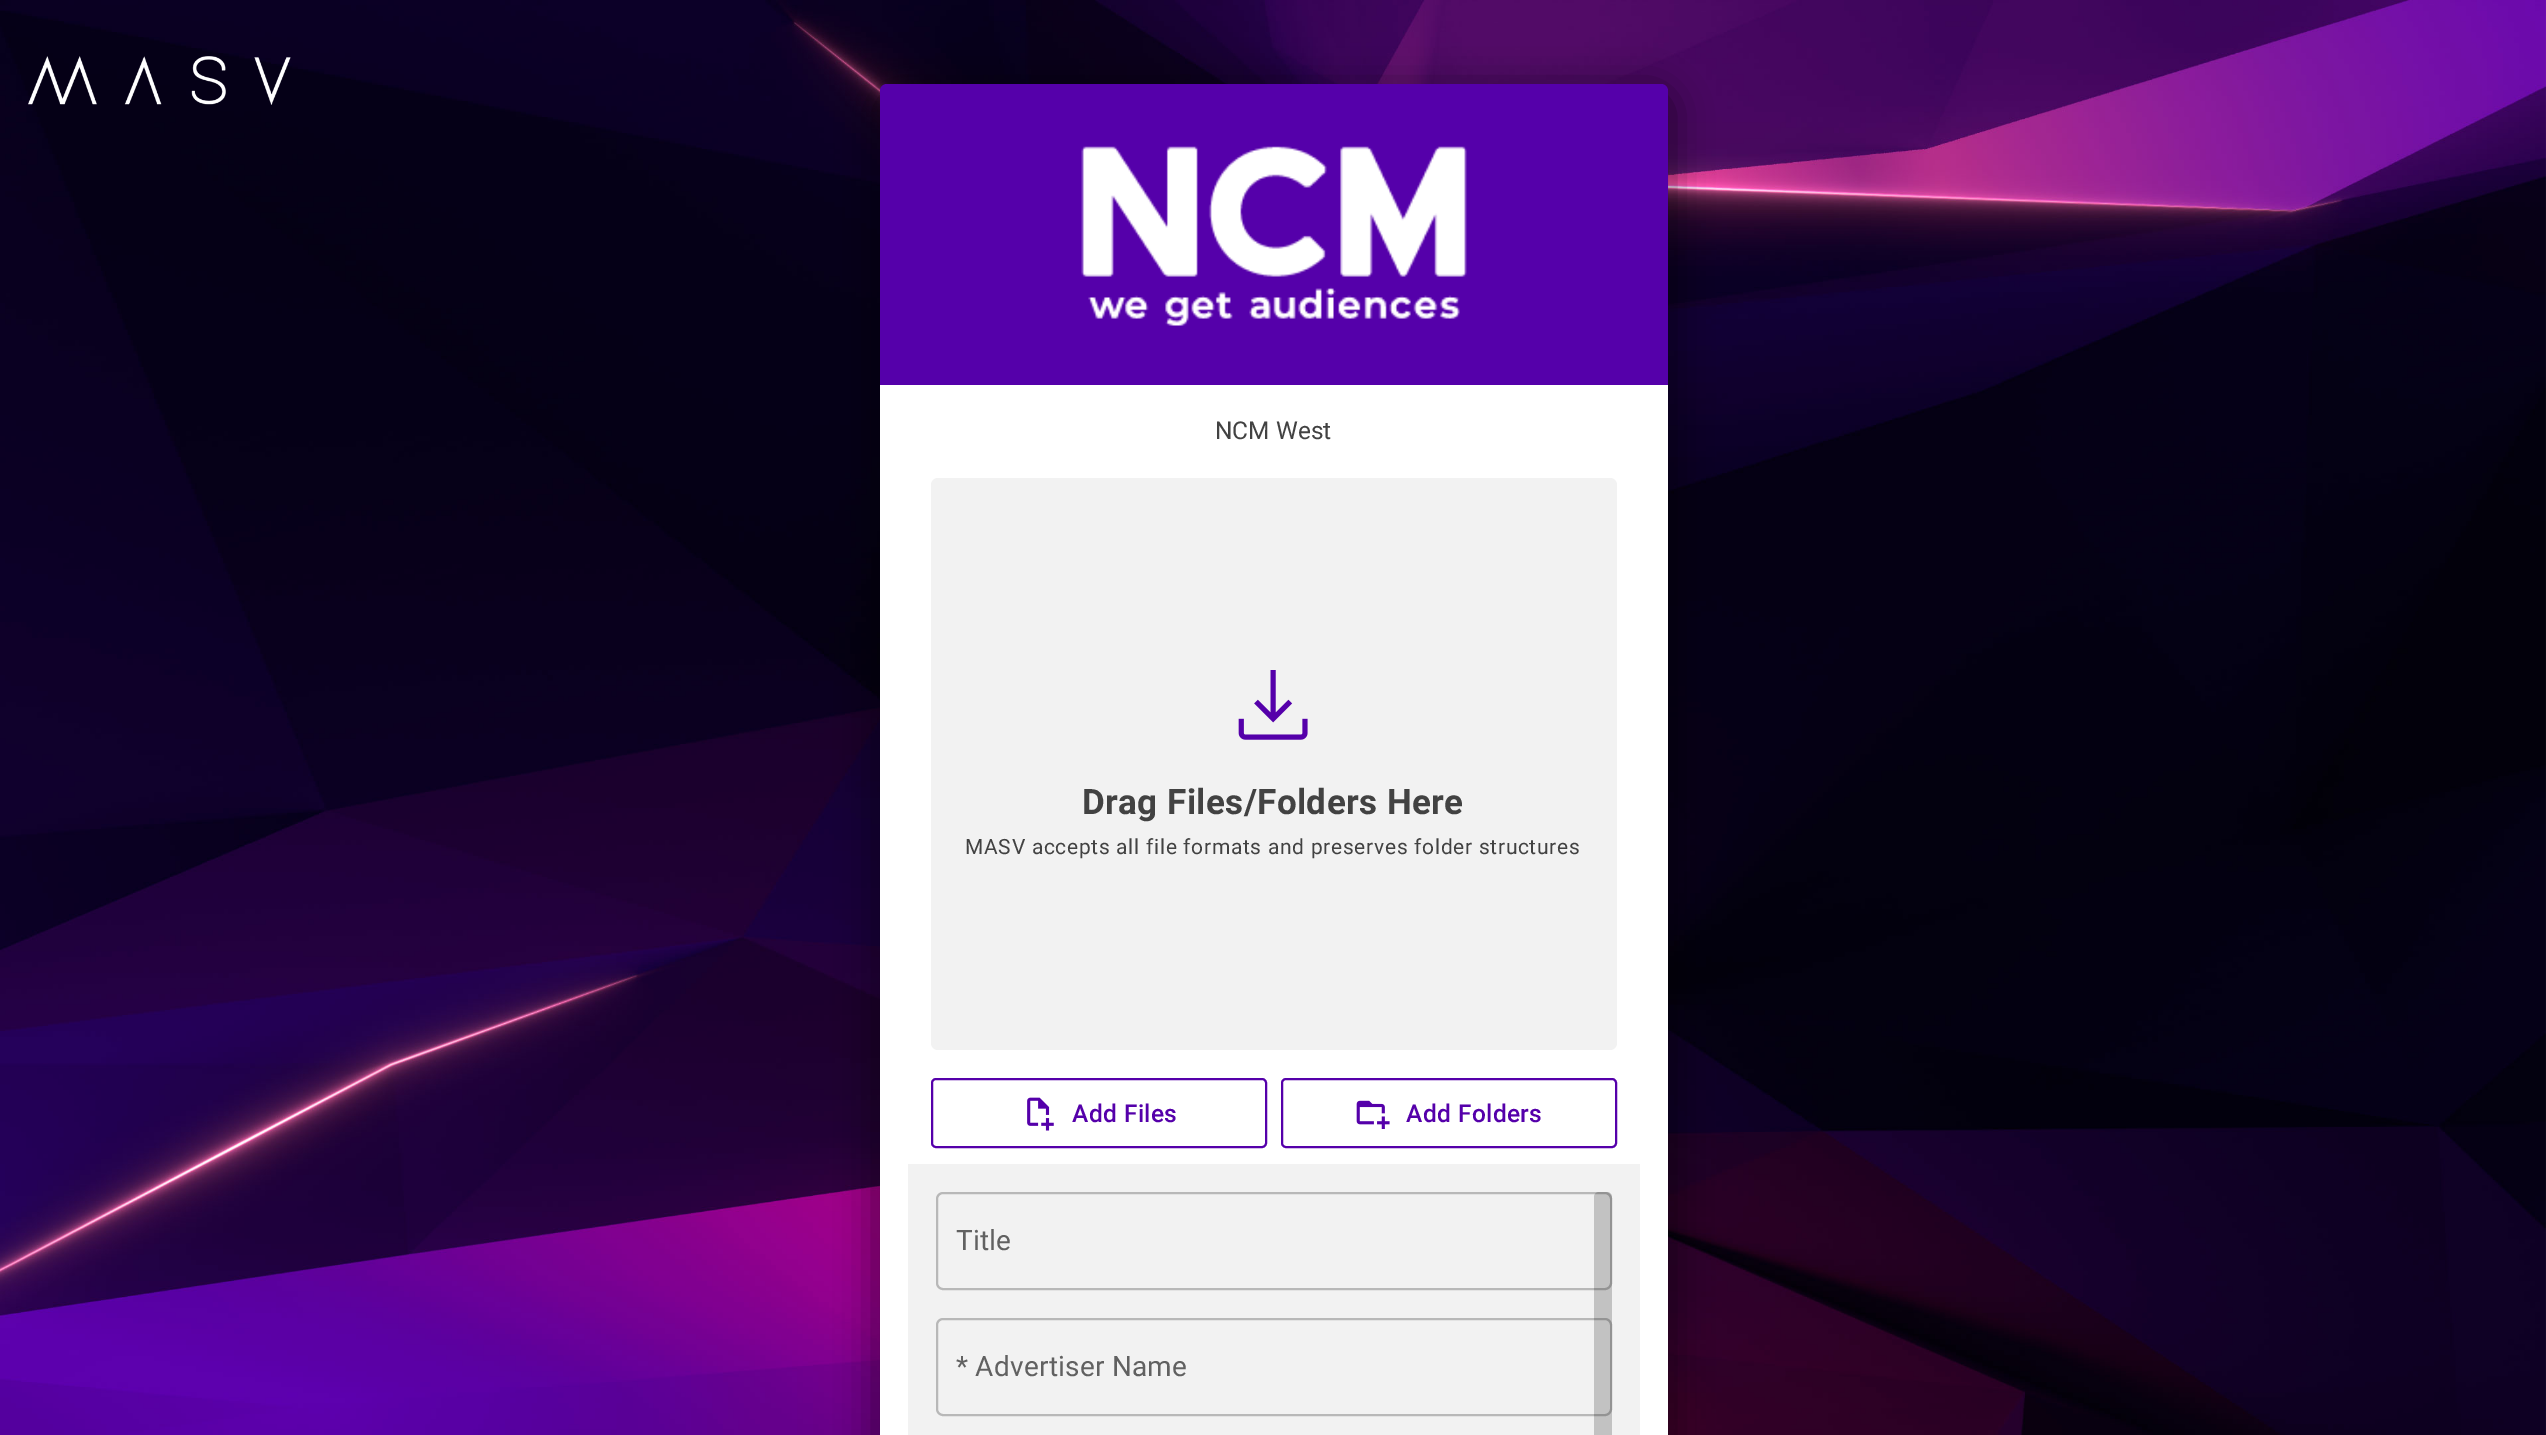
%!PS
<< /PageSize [2546 1435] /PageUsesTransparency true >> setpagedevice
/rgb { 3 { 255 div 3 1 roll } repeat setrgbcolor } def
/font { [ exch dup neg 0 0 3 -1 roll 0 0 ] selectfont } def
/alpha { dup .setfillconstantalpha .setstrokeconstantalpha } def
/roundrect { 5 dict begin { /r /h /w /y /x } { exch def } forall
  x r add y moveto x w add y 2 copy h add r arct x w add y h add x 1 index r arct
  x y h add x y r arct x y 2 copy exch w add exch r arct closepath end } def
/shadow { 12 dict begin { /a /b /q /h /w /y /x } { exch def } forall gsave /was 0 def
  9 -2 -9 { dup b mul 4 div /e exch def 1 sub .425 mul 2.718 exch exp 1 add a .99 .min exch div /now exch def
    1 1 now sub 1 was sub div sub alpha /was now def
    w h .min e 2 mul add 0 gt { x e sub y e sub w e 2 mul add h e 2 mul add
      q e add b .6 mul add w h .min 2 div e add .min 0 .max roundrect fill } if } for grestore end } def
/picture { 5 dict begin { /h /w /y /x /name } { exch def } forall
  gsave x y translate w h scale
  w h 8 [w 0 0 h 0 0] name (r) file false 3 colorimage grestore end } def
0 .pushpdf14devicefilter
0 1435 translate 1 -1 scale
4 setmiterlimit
255 255 255 rgb
0 0 2546 1435 rectfill
(img/1.rgb) 0 0 2546 1435 picture
(img/2.rgb) 28 56 263 49 picture
0 0 0 rgb
875 89 798 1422 19 19 0.5 shadow
255 255 255 rgb
880 84 788 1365 14 roundrect fill
85 0 170 rgb
887 84 moveto 1661 84 lineto 1665 84 1668 87 1668 91 curveto 1668 385 lineto 880 385 lineto 880 91 lineto 880 87 883 84 887 84 curveto closepath fill
(img/3.rgb) 1081 146 386 180 picture
242 242 242 rgb
931 478 686 572 7 roundrect fill
(img/4.rgb) 1238 670 70 70 picture
85 0 170 rgb
2 setlinewidth
932 1079 334 68 4 roundrect stroke
(img/5.rgb) 1027 1097 27 34 picture
1282 1079 334 68 4 roundrect stroke
(img/6.rgb) 1356 1100 34 29 picture
242 242 242 rgb
908 1164 732 271 rectfill
184 184 184 rgb
937 1193 674 96 6 roundrect stroke
937 1319 674 96 6 roundrect stroke
0.2 alpha
0 0 0 rgb
1594 1192 18 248 5 roundrect fill
/Roboto-Regular 24.5 font
1 alpha
66 66 66 rgb
1215 439 moveto (NCM West) show
/Roboto-Bold 35 font
1082 814 moveto 0.4 0 (Drag Files/Folders Here) ashow
/Roboto-Regular 21 font
965 854 moveto 0.7 0 (MASV accepts all file formats and preserves folder structures) ashow
/Roboto-Medium 24.5 font
85 0 170 rgb
1072 1122 moveto 0.4 0 (Add Files) ashow
1406 1122 moveto 0.4 0 (Add Folders) ashow
/Roboto-Regular 28 font
97 97 97 rgb
956 1250 moveto 0.25 0 (Title) ashow
956 1376 moveto 0.25 0 (* Advertiser Name) ashow
.poppdf14devicefilter showpage
